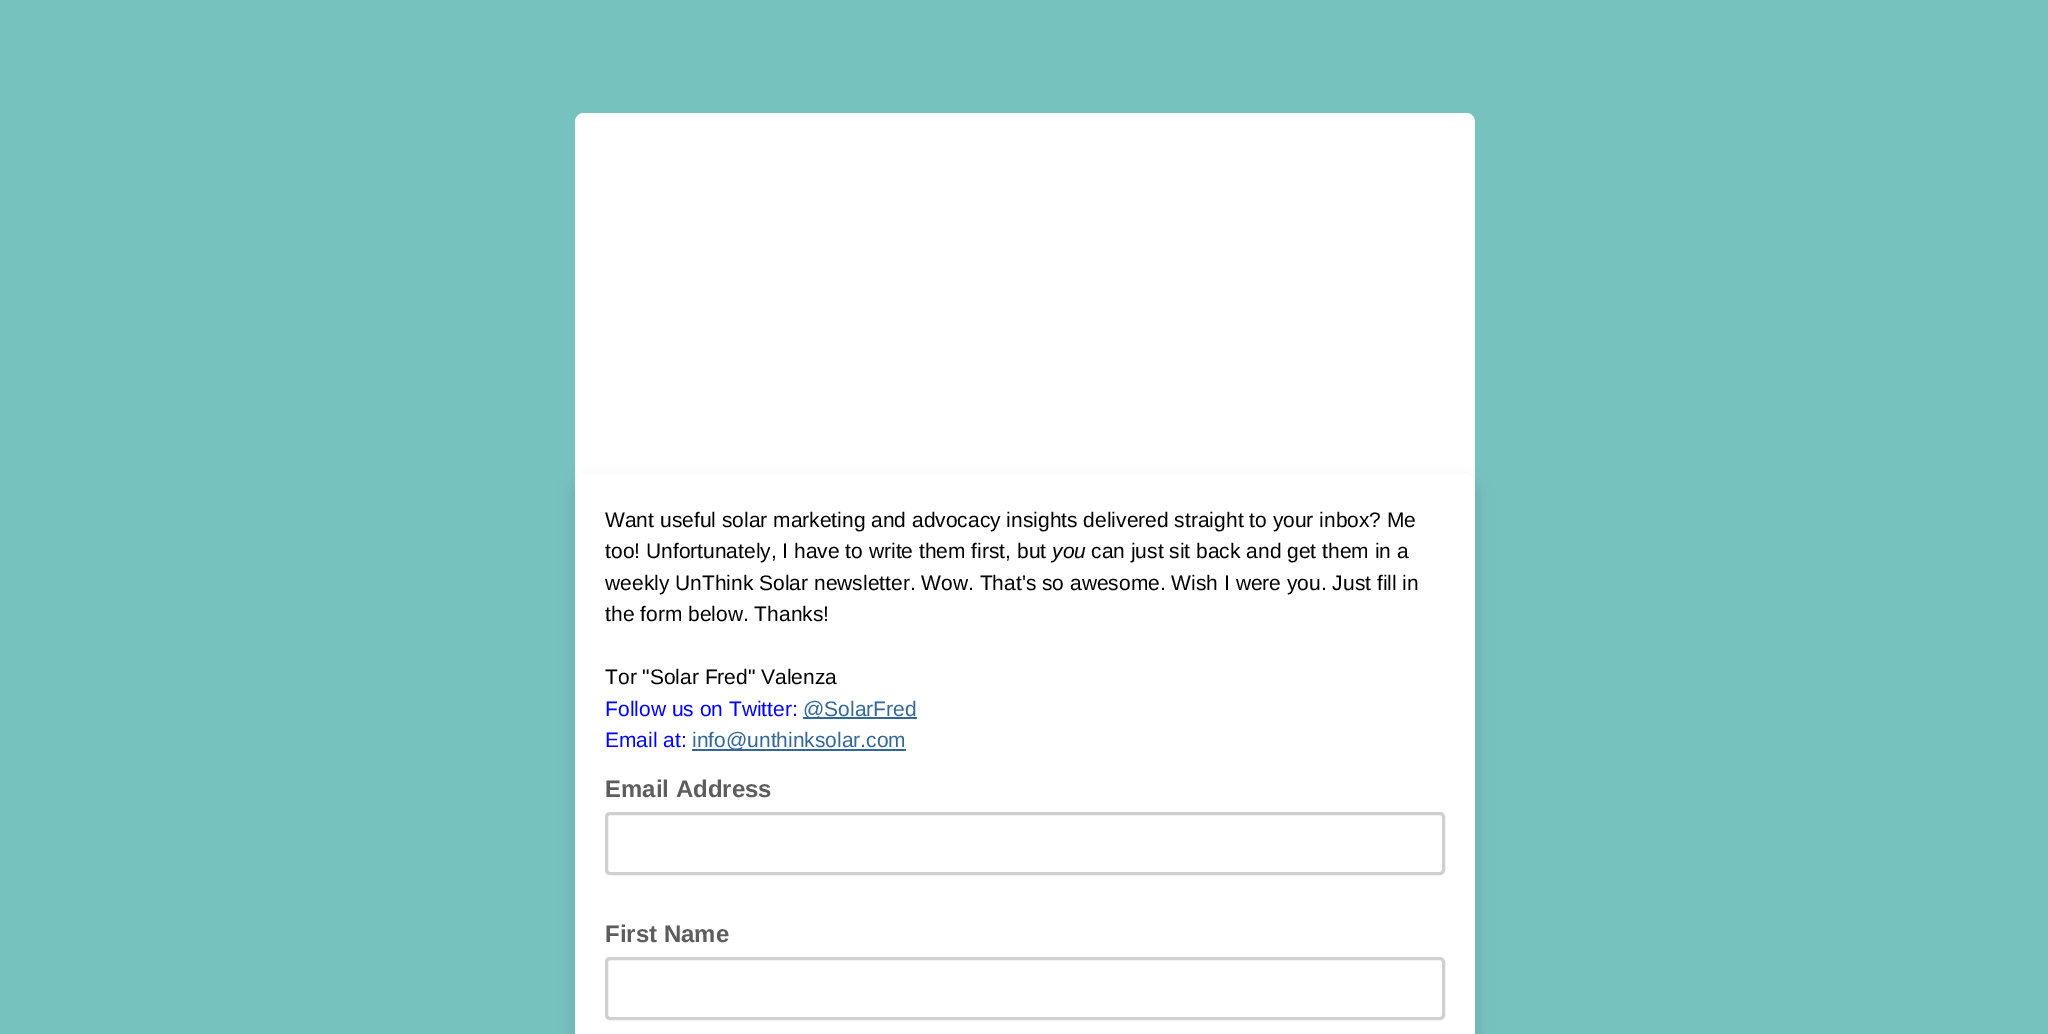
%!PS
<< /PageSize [2048 1034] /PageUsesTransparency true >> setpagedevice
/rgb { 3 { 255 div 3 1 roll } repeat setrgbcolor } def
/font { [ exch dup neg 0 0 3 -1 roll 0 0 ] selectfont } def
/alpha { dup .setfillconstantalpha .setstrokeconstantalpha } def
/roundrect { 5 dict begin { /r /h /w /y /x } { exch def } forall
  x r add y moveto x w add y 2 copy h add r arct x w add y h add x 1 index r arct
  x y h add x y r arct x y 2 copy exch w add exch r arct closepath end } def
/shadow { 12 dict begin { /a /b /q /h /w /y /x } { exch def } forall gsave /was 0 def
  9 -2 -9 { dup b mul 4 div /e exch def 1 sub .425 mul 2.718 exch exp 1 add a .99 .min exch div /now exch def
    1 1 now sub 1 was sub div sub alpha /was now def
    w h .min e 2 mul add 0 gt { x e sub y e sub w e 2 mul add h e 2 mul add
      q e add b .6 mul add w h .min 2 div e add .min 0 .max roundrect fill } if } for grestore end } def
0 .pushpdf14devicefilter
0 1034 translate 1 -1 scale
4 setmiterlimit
118 194 191 rgb
0 0 2048 1034 rectfill
255 255 255 rgb
575 113 900 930 9 roundrect fill
13 18 22 rgb
575 483 900 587 9 9 0.12 shadow
255 255 255 rgb
575 474 900 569 9 roundrect fill
51 102 153 rgb
803 717 114 2 rectfill
692 749 214 2 rectfill
208 208 208 rgb
3 setlinewidth
606.5 813.5 837 60 3.5 roundrect stroke
606.5 958.5 837 60 3.5 roundrect stroke
/LiberationSans-Regular 21 font
0 0 0 rgb
605 527 moveto (Want useful solar marketing and advocacy insights delivered straight to your inbox? Me) show
605 558 moveto (too! Unfortunately, I have to write them first, but) show
/LiberationSans-Italic 21 font
1052 558 moveto (you) show
/LiberationSans-Regular 21 font
[
  [(can just sit back and get them in a) 1091 558]
  [(weekly UnThink Solar newsletter. Wow. That's so awesome. Wish I were you. Just fill in) 605 590]
  [(the form below. Thanks!) 605 621]
  [(Tor "Solar Fred" Valenza) 605 684]
] { aload pop moveto show } forall
0 0 255 rgb
605 716 moveto (Follow us on Twitter:) show
51 102 153 rgb
803 716 moveto (@SolarFred) show
0 0 255 rgb
605 747 moveto (Email at:) show
51 102 153 rgb
692 747 moveto (info@unthinksolar.com) show
/LiberationSans-Bold 24 font
93 93 93 rgb
605 797 moveto (Email Address) show
605 942 moveto (First Name) show
.poppdf14devicefilter showpage
